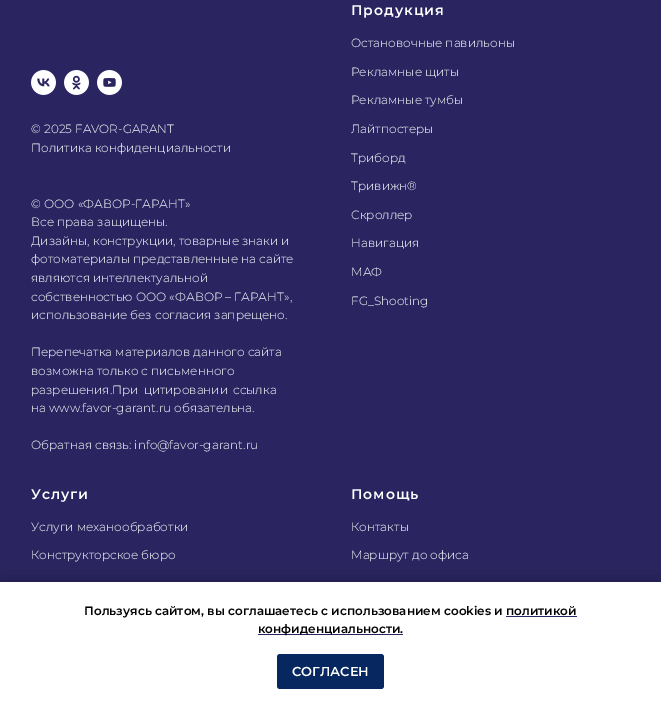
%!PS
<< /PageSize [661 709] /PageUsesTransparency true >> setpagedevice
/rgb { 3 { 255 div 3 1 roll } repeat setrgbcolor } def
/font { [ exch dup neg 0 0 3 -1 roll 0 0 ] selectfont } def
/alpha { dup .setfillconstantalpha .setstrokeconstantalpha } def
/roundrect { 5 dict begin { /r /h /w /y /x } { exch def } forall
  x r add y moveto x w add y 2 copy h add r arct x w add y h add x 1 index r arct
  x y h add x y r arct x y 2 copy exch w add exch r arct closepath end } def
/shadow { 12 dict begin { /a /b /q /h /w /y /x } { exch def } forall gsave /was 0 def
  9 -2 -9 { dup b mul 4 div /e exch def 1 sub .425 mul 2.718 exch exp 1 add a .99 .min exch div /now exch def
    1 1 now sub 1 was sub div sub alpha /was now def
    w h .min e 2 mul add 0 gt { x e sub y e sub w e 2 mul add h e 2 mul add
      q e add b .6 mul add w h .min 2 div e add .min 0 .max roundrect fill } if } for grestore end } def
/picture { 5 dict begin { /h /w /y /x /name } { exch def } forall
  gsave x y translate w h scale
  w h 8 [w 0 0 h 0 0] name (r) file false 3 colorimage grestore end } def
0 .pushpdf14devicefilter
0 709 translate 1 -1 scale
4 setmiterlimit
42 37 96 rgb
0 0 661 709 rectfill
(img/1.rgb) 31 70 25 25 picture
(img/2.rgb) 64 70 25 25 picture
(img/3.rgb) 97 70 25 25 picture
0 0 0 rgb
0 582 661 127 0 10 0.3 shadow
255 255 255 rgb
0 582 661 127 rectfill
38 39 95 rgb
258 634 145 1 rectfill
6 39 95 rgb
277 654 107 35 3 roundrect fill
/Montserrat-Light 12 font
255 255 255 rgb
[
  [(© 2025 FAVOR-GARANT) 31 133]
  [(Политика конфиденциальности) 31 152]
  [(© ООО «ФАВОР-ГАРАНТ») 31 208]
  [(Все права защищены.) 31 226]
  [(Дизайны, конструкции, товарные знаки и) 31 245]
  [(фотоматериалы представленные на сайте) 31 263]
  [(являются интеллектуальной) 31 282]
  [(собственностью ООО «ФАВОР – ГАРАНТ»,) 31 301]
  [(использование без согласия запрещено.) 31 319]
  [(Перепечатка материалов данного сайта) 31 356]
  [(возможна только с письменного) 31 375]
] { aload pop moveto show } forall
31 394 moveto 2 0 32 (разрешения.При цитировании ссылка) widthshow
31 412 moveto (на www.favor-garant.ru обязательна.) show
31 449 moveto (Обратная связь: info@favor-garant.ru) show
/Montserrat-SemiBold 14 font
351 15 moveto 1 0 (Продукция) ashow
/Montserrat-Light 12 font
[
  [(Остановочные павильоны) 351 47]
  [(Рекламные щиты) 351 76]
  [(Рекламные тумбы) 351 104]
  [(Лайтпостеры) 351 133]
  [(Триборд) 351 162]
  [(Тривижн®) 351 190]
  [(Скроллер) 351 219]
  [(Навигация) 351 247]
  [(МАФ) 351 276]
  [(FG_Shooting) 351 305]
] { aload pop moveto show } forall
/Montserrat-SemiBold 14 font
31 499 moveto 1 0 (Услуги) ashow
/Montserrat-Light 12 font
31 531 moveto (Услуги механообработки) show
31 559 moveto (Конструкторское бюро) show
/Montserrat-SemiBold 14 font
351 499 moveto 1 0 (Помощь) ashow
/Montserrat-Light 12 font
351 531 moveto (Контакты) show
351 559 moveto (Маршрут до офиса) show
/Montserrat-SemiBold 12 font
0 0 0 rgb
84 615 moveto (Пользуясь сайтом, вы соглашаетесь с использованием cookies и политикой) show
258 633 moveto (конфиденциальности.) show
38 39 95 rgb
506 616 71 1 rectfill
/Montserrat-SemiBold 13 font
255 255 255 rgb
292 676 moveto (СОГЛАСЕН) show
.poppdf14devicefilter showpage
